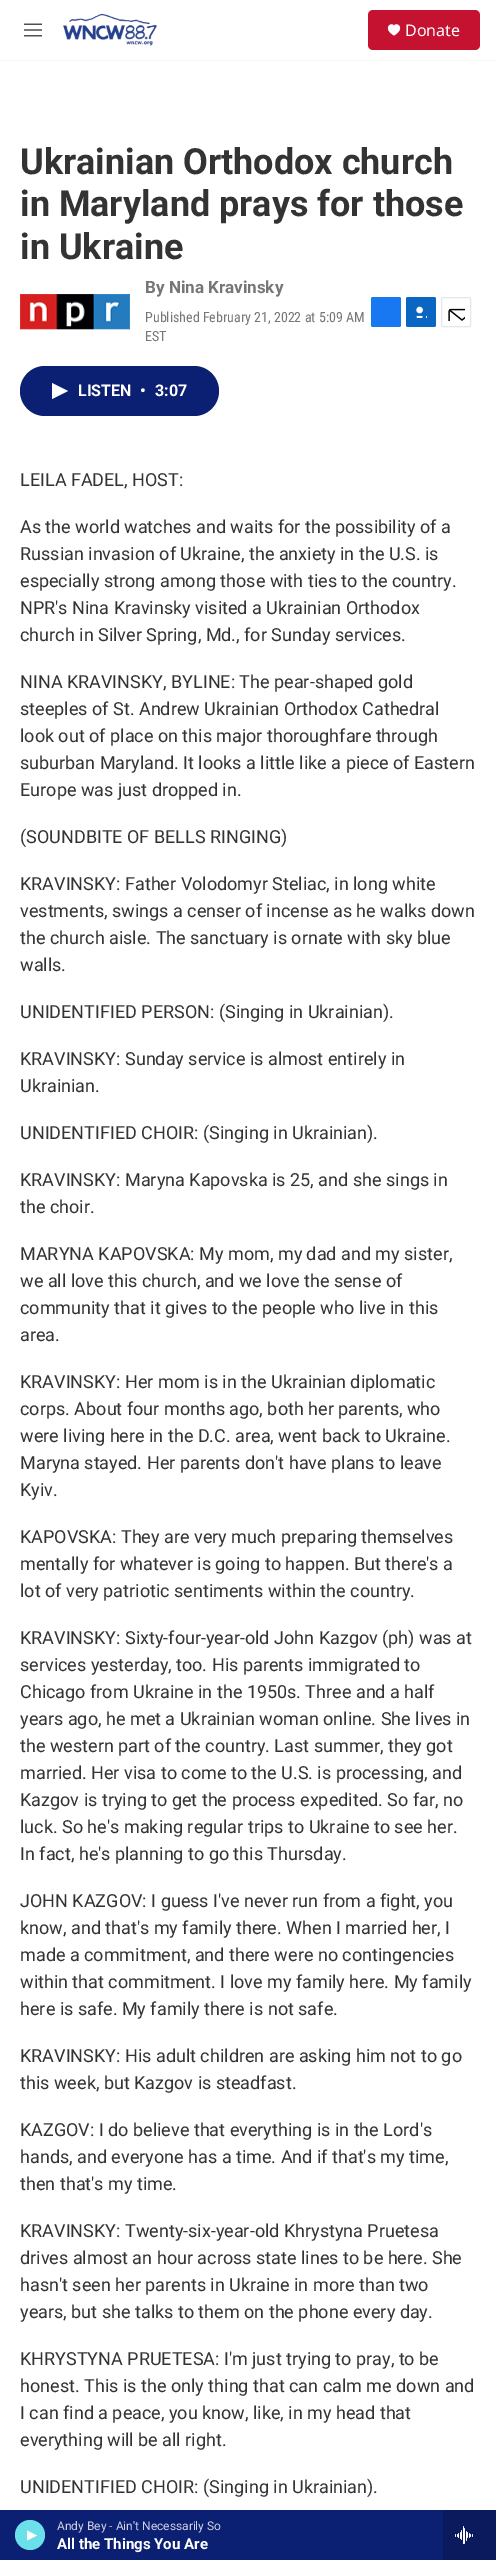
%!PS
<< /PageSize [496 2560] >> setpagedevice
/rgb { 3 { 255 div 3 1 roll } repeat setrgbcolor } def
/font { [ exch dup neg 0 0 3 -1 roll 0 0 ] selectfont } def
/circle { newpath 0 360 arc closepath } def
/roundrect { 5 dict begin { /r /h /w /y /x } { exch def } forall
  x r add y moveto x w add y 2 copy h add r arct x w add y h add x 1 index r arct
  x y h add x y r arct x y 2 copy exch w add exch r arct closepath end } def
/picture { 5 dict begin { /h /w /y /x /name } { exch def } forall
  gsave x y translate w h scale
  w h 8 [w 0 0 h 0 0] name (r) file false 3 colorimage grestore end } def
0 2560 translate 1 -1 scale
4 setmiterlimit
255 255 255 rgb
0 0 496 2560 rectfill
245 245 245 rgb
0 60 496 1 rectfill
(img/1.rgb) 24 23 18 14 picture
(img/2.rgb) 63 13 94 33 picture
196 18 48 rgb
368 10 112 40 5 roundrect fill
255 255 255 rgb
394 26 moveto 392 21 381.5 28 394 35.5 curveto 406.5 28 396 21 394 26 curveto closepath fill
12 32 115 rgb
0 2510 443 50 rectfill
107 224 234 rgb
30 2535 15 circle fill
255 255 255 rgb
27 2530.5 moveto 37 2535.5 lineto 27 2540.5 lineto closepath fill
10 26 92 rgb
443 2510 53 50 rectfill
(img/3.rgb) 455 2526 18 18 picture
(img/4.rgb) 20 294 110 36 picture
23 120 242 rgb
371 297 30 30 2 roundrect fill
10 102 193 rgb
406 297 30 30 2 roundrect fill
(img/5.rgb) 416 306 11 12 picture
230 230 230 rgb
441.5 297.5 29 29 1.5 roundrect stroke
(img/6.rgb) 448 308 17 13 picture
12 32 115 rgb
20 366 199 50 25 roundrect fill
255 255 255 rgb
52 383 moveto 68 391 lineto 52 399 lineto closepath fill
/NotoSans-Regular 16 font
405 36 moveto (Donate) show
/Roboto-Regular 12 font
206 210 227 rgb
57 2530 moveto (Andy Bey - Ain't Necessarily So) show
/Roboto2-Bold 15 font
255 255 255 rgb
57 2549 moveto (All the Things You Are) show
/Roboto-Bold 36 font
51 51 51 rgb
[
  [(Ukrainian Orthodox church) 20 174]
  [(in Maryland prays for those) 20 216]
  [(in Ukraine) 20 259]
] { aload pop moveto show } forall
/Roboto-Bold 17 font
118 118 118 rgb
145 293 moveto (By Nina Kravinsky) show
/RobotoCondensed-Regular 14 font
145 322 moveto (Published February 21, 2022 at 5:09 AM) show
145 341 moveto (EST) show
/Roboto2-Bold 16 font
255 255 255 rgb
[
  [(LISTEN) 78 396]
  [(•) 140 396]
  [(3:07) 155 396]
] { aload pop moveto show } forall
/Roboto-Regular 18 font
51 51 51 rgb
[
  [(LEILA FADEL, HOST:) 20 486]
  [(As the world watches and waits for the possibility of a) 20 533]
  [(Russian invasion of Ukraine, the anxiety in the U.S. is) 20 560]
  [(especially strong among those with ties to the country.) 20 587]
  [(NPR's Nina Kravinsky visited a Ukrainian Orthodox) 20 614]
  [(church in Silver Spring, Md., for Sunday services.) 20 641]
  [(NINA KRAVINSKY, BYLINE: The pear-shaped gold) 20 688]
  [(steeples of St. Andrew Ukrainian Orthodox Cathedral) 20 715]
  [(look out of place on this major thoroughfare through) 20 742]
  [(suburban Maryland. It looks a little like a piece of Eastern) 20 769]
  [(Europe was just dropped in.) 20 796]
  [(\(SOUNDBITE OF BELLS RINGING\)) 20 843]
  [(KRAVINSKY: Father Volodomyr Steliac, in long white) 20 890]
  [(vestments, swings a censer of incense as he walks down) 20 917]
  [(the church aisle. The sanctuary is ornate with sky blue) 20 944]
  [(walls.) 20 971]
  [(UNIDENTIFIED PERSON: \(Singing in Ukrainian\).) 20 1018]
  [(KRAVINSKY: Sunday service is almost entirely in) 20 1065]
  [(Ukrainian.) 20 1092]
  [(UNIDENTIFIED CHOIR: \(Singing in Ukrainian\).) 20 1139]
  [(KRAVINSKY: Maryna Kapovska is 25, and she sings in) 20 1186]
  [(the choir.) 20 1213]
  [(MARYNA KAPOVSKA: My mom, my dad and my sister,) 20 1260]
  [(we all love this church, and we love the sense of) 20 1287]
  [(community that it gives to the people who live in this) 20 1314]
  [(area.) 20 1341]
  [(KRAVINSKY: Her mom is in the Ukrainian diplomatic) 20 1388]
  [(corps. About four months ago, both her parents, who) 20 1415]
  [(were living here in the D.C. area, went back to Ukraine.) 20 1442]
  [(Maryna stayed. Her parents don't have plans to leave) 20 1469]
  [(Kyiv.) 20 1496]
  [(KAPOVSKA: They are very much preparing themselves) 20 1543]
  [(mentally for whatever is going to happen. But there's a) 20 1570]
  [(lot of very patriotic sentiments within the country.) 20 1597]
  [(KRAVINSKY: Sixty-four-year-old John Kazgov \(ph\) was at) 20 1644]
  [(services yesterday, too. His parents immigrated to) 20 1671]
  [(Chicago from Ukraine in the 1950s. Three and a half) 20 1698]
  [(years ago, he met a Ukrainian woman online. She lives in) 20 1725]
  [(the western part of the country. Last summer, they got) 20 1752]
  [(married. Her visa to come to the U.S. is processing, and) 20 1779]
  [(Kazgov is trying to get the process expedited. So far, no) 20 1806]
  [(luck. So he's making regular trips to Ukraine to see her.) 20 1833]
  [(In fact, he's planning to go this Thursday.) 20 1860]
  [(JOHN KAZGOV: I guess I've never run from a fight, you) 20 1907]
  [(know, and that's my family there. When I married her, I) 20 1934]
  [(made a commitment, and there were no contingencies) 20 1961]
  [(within that commitment. I love my family here. My family) 20 1988]
  [(here is safe. My family there is not safe.) 20 2015]
  [(KRAVINSKY: His adult children are asking him not to go) 20 2062]
  [(this week, but Kazgov is steadfast.) 20 2089]
  [(KAZGOV: I do believe that everything is in the Lord's) 20 2136]
  [(hands, and everyone has a time. And if that's my time,) 20 2163]
  [(then that's my time.) 20 2190]
  [(KRAVINSKY: Twenty-six-year-old Khrystyna Pruetesa) 20 2237]
  [(drives almost an hour across state lines to be here. She) 20 2264]
  [(hasn't seen her parents in Ukraine in more than two) 20 2291]
  [(years, but she talks to them on the phone every day.) 20 2318]
  [(KHRYSTYNA PRUETESA: I'm just trying to pray, to be) 20 2365]
  [(honest. This is the only thing that can calm me down and) 20 2392]
  [(I can find a peace, you know, like, in my head that) 20 2419]
  [(everything will be all right.) 20 2446]
  [(UNIDENTIFIED CHOIR: \(Singing in Ukrainian\).) 20 2493]
] { aload pop moveto show } forall
showpage
